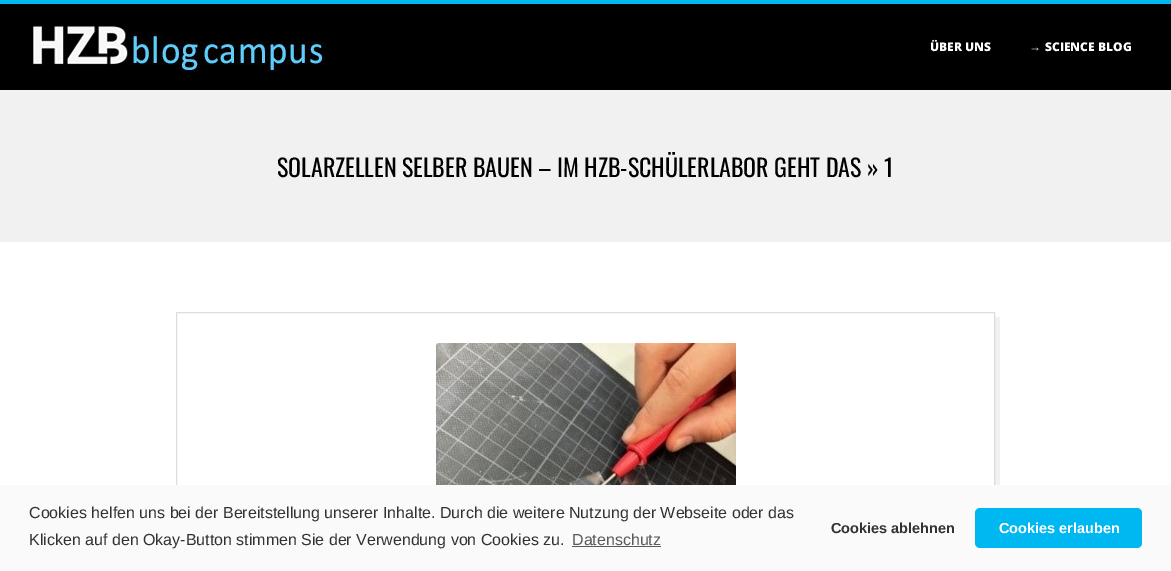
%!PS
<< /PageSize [1171 571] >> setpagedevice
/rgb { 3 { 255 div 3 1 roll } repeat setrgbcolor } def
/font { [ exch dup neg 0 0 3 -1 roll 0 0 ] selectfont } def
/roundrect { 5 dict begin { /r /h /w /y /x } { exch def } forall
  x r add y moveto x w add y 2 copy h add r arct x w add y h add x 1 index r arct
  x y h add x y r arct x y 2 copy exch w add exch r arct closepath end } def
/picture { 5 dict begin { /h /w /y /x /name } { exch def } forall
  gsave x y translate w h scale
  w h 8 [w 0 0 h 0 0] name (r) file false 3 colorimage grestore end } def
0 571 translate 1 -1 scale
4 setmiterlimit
255 255 255 rgb
0 0 1171 571 rectfill
0 184 241 rgb
0 0 1171 4 rectfill
0 0 0 rgb
0 4 1171 86 rectfill
(img/1.rgb) 30 25 296 48 picture
241 241 241 rgb
0 90 1171 152 rectfill
181 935 moveto 181 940 lineto 1000 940 lineto 1000 317 lineto 995 317 lineto 995 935 lineto closepath fill
221 221 221 rgb
176.5 312.5 818 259 rectstroke
(img/2.rgb) 436 343 300 142 picture
250 250 250 rgb
0 485 1171 86 rectfill
91 90 90 rgb
572 546 89 1 rectfill
0 184 241 rgb
975 508 167 40 5 roundrect fill
/OpenSans-ExtraBold 12 font
255 255 255 rgb
930 51 moveto (ÜBER UNS) show
/LiberationSans-Bold 12 font
1029 51 moveto (→) show
/OpenSans-ExtraBold 12 font
1045 51 moveto (SCIENCE BLOG) show
/Oswald-Regular 24 font
0 0 0 rgb
277 177 moveto (SOLARZELLEN SELBER BAUEN – IM HZB-SCHÜLERLABOR GEHT DAS » 1) show
/LiberationSans-Regular 16 font
51 50 50 rgb
29 518 moveto (Cookies helfen uns bei der Bereitstellung unserer Inhalte. Durch die weitere Nutzung der Webseite oder das) show
29 545 moveto (Klicken auf den Okay-Button stimmen Sie der Verwendung von Cookies zu.) show
91 90 90 rgb
572 545 moveto (Datenschutz) show
/LiberationSans-Bold 14.5 font
51 50 50 rgb
831 533 moveto (Cookies ablehnen) show
255 255 255 rgb
999 533 moveto (Cookies erlauben) show
showpage
